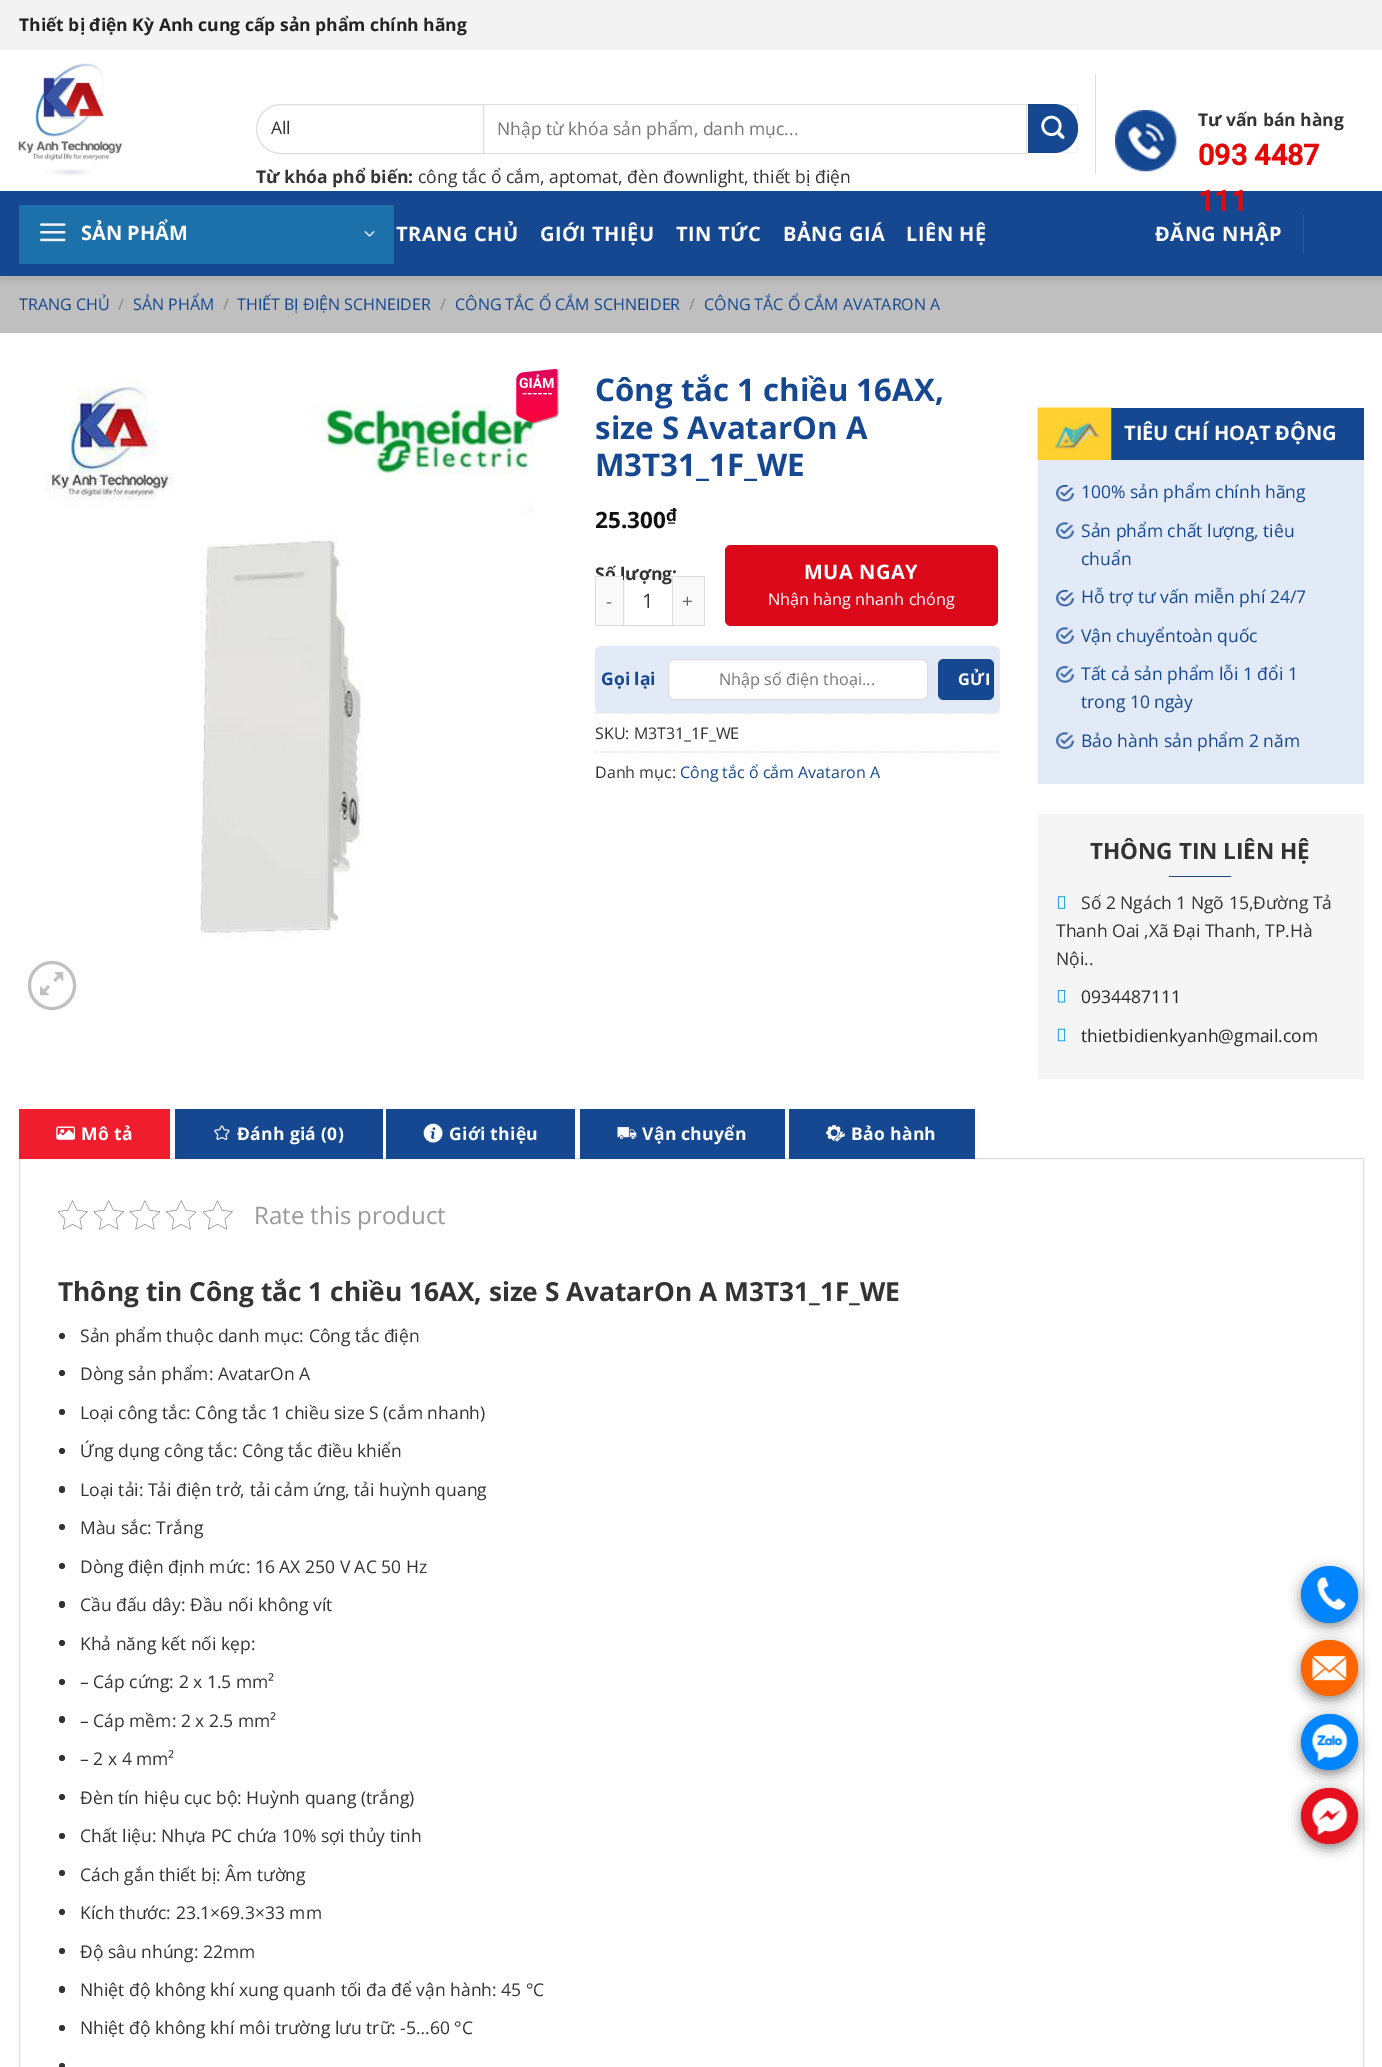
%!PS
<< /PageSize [1382 2067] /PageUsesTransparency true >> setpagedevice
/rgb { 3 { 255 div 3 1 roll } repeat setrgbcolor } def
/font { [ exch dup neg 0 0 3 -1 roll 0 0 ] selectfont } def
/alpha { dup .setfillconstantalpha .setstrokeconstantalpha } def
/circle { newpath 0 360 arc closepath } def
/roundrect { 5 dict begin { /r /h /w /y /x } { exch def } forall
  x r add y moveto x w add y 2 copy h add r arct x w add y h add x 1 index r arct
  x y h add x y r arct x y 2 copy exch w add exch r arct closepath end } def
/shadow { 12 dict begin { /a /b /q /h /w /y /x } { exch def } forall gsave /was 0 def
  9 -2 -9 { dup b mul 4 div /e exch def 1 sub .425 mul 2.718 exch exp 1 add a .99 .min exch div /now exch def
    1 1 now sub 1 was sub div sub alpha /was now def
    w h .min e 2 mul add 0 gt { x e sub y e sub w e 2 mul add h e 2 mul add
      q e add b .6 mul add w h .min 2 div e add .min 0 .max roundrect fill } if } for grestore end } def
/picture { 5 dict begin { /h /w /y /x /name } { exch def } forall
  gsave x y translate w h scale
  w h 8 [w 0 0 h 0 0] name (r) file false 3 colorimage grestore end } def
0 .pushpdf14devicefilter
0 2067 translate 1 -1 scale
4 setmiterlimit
255 255 255 rgb
0 0 1382 2067 rectfill
191 191 191 rgb
0 276 1382 57 rectfill
gsave
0 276 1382 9 rectclip
0 0 0 rgb
1 1 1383 277 0 6 0.15 shadow
grestore
243 243 243 rgb
0 0 1382 50 rectfill
(img/1.rgb) 18 63 105 113 picture
221 221 221 rgb
281 104.5 moveto 483.5 104.5 lineto 483.5 153.5 lineto 281 153.5 lineto 267.5 153.5 256.5 142.5 256.5 129 curveto 256.5 115.5 267.5 104.5 281 104.5 curveto closepath stroke
[
  [484 104 544 1 221 221 221]
  [1026 104 1 50 221 221 221]
  [484 153 544 1 221 221 221]
] { aload pop rgb rectfill } forall
22 72 146 rgb
1028 104 moveto 1053.5 104 lineto 1067 104 1078 115 1078 128.5 curveto 1078 142 1067 153 1053.5 153 curveto 1028 153 lineto closepath fill
0.05 alpha
0 0 0 rgb
1028.5 104.5 49 48 rectstroke
1 alpha
(img/2.rgb) 1041 115 24 24 picture
221 221 221 rgb
1095 74 1 100 rectfill
(img/3.rgb) 1115 110 63 62 picture
22 72 146 rgb
0 191 1382 85 rectfill
29 113 171 rgb
19 205 375 59 rectfill
(img/4.rgb) 40 223 26 19 picture
(img/5.rgb) 364 231 11 6 picture
45 90 157 rgb
1303 215 1 38 rectfill
(img/6.rgb) 45 380 491 558 picture
(img/7.rgb) 516 369 43 55 picture
192 192 192 rgb
3 setlinewidth
29.5 962.5 45 46 22.5 roundrect stroke
(img/8.rgb) 40 971 24 25 picture
218 8 25 rgb
725 545 273 81 6 roundrect fill
0.05 alpha
0 0 0 rgb
1 setlinewidth
725.5 545.5 272 80 rectstroke
1 alpha
221 221 221 rgb
595 625 28 1 rectfill
623.5 576.5 49 49 rectstroke
1.2 setlinewidth
[1.25 1.25] 0 setdash
595 713 moveto 1000 713 lineto stroke
226 234 247 rgb
595 646 405 67 6 roundrect fill
255 255 255 rgb
668.5 659.5 259 40 5.5 roundrect gsave fill grestore
221 221 221 rgb
1 setlinewidth
[] 0 setdash
stroke
22 72 146 rgb
938 659 56 41 6 roundrect fill
0.05 alpha
0 0 0 rgb
938.5 659.5 55 40 rectstroke
1 alpha
221 221 221 rgb
1.2 setlinewidth
[1.25 1.25] 0 setdash
595 752 moveto 1000 752 lineto stroke
22 72 146 rgb
1111 408 253 52 rectfill
(img/9.rgb) 1037 407 75 53 picture
226 234 247 rgb
1038 460 326 324 rectfill
(img/10.rgb) 1056 485 18 17 picture
(img/11.rgb) 1056 522 18 17 picture
(img/10.rgb) 1056 590 18 17 picture
(img/11.rgb) 1056 627 18 17 picture
(img/12.rgb) 1056 666 18 17 picture
(img/11.rgb) 1056 732 18 17 picture
245 245 245 rgb
1038 814 326 265 rectfill
22 72 146 rgb
1169 876 62 1 rectfill
(img/13.rgb) 1057 896 9 13 picture
(img/14.rgb) 1057 990 9 13 picture
(img/15.rgb) 1057 1028 9 14 picture
221 221 221 rgb
1 setlinewidth
[] 0 setdash
19.5 1158.5 1344 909 rectstroke
239 29 46 rgb
19 1109 151 50 rectfill
(img/16.rgb) 56 1126 19 14 picture
22 72 146 rgb
175 1109 208 50 rectfill
(img/17.rgb) 214 1125 16 15 picture
386 1109 189 50 rectfill
(img/18.rgb) 423 1123 20 20 picture
580 1109 205 50 rectfill
(img/19.rgb) 617 1126 20 14 picture
789 1109 186 50 rectfill
(img/20.rgb) 826 1124 19 18 picture
(img/21.rgb) 58 1200 30 30 picture
(img/22.rgb) 94 1200 30 30 picture
(img/23.rgb) 130 1200 30 30 picture
(img/24.rgb) 166 1200 30 30 picture
(img/21.rgb) 203 1200 30 30 picture
51 51 51 rgb
62 1336 3 circle fill
62 1373 3 circle fill
62 1412 3 circle fill
62 1451 3 circle fill
59 1486 6 7 3 roundrect fill
62 1527 3 circle fill
62 1566 3 circle fill
59 1601 6 7 3 roundrect fill
62 1643 3 circle fill
62 1682 3 circle fill
59 1716 6 7 3 roundrect fill
62 1758 3 circle fill
62 1797 3 circle fill
62 1836 3 circle fill
62 1873 3 circle fill
62 1912 3 circle fill
62 1951 3 circle fill
59 1986 6 7 3 roundrect fill
62 2028 3 circle fill
62 2066 3 circle fill
136 136 136 rgb
1301 1570 57 56 28 6 1 shadow
0 132 255 rgb
1329.5 1594.5 28.5 circle fill
(img/25.rgb) 1317 1577 29 33 picture
136 136 136 rgb
1301 1644 57 56 28 6 1 shadow
255 102 0 rgb
1301 1640 57 56 28 roundrect fill
(img/26.rgb) 1312 1656 35 25 picture
136 136 136 rgb
1301 1718 57 56 28 6 1 shadow
0 132 255 rgb
1301 1714 57 56 28 roundrect fill
(img/27.rgb) 1312 1723 36 39 picture
136 136 136 rgb
1301 1791 57 57 28.5 6 1 shadow
230 15 30 rgb
1301 1788 57 56 28 roundrect fill
(img/28.rgb) 1312 1797 36 38 picture
/OpenSans-Bold 17.5 font
34 34 34 rgb
19 31 moveto (Thiết bị điện Kỳ Anh cung cấp sản phẩm chính hãng) show
/OpenSans-Regular 17.5 font
51 51 51 rgb
271 134 moveto (All) show
117 117 117 rgb
497 135 moveto (Nhập từ khóa sản phẩm, danh mục...) show
/OpenSans-Bold 17.5 font
51 51 51 rgb
256 183 moveto (Từ khóa phổ biến:) show
/OpenSans-Regular 17.5 font
418 183 moveto (công tắc ổ cắm, aptomat, đèn đownlight, thiết bị điện) show
/OpenSans-Bold 17.5 font
1198 126 moveto (Tư vấn bán hàng) show
/Roboto-Bold 28.75 font
228 8 8 rgb
1198 165 moveto (093 4487) show
1198 211 moveto (111) show
/OpenSans-Bold 20 font
255 255 255 rgb
81 240 moveto (SẢN PHẨM) show
396 241 moveto 0.5 0 (TRANG CHỦ) ashow
540 241 moveto 0.5 0 (GIỚI THIỆU) ashow
676 241 moveto 0.5 0 (TIN TỨC) ashow
783 241 moveto 0.5 0 (BẢNG GIÁ) ashow
906 241 moveto 0.5 0 (LIÊN HỆ) ashow
1155 241 moveto 0.5 0 (ĐĂNG NHẬP) ashow
/OpenSans-Regular 16 font
22 72 146 rgb
19 310 moveto (TRANG CHỦ) show
136 136 136 rgb
118 310 moveto (/) show
22 72 146 rgb
133 310 moveto (SẢN PHẨM) show
136 136 136 rgb
223 310 moveto (/) show
22 72 146 rgb
237 310 moveto (THIẾT BỊ ĐIỆN SCHNEIDER) show
136 136 136 rgb
440 310 moveto (/) show
22 72 146 rgb
455 310 moveto (CÔNG TẮC Ổ CẮM SCHNEIDER) show
136 136 136 rgb
689 310 moveto (/) show
22 72 146 rgb
704 310 moveto (CÔNG TẮC Ổ CẮM AVATARON A) show
/OpenSans-Bold 31.25 font
[
  [(Công tắc 1 chiều 16AX,) 595 401]
  [(size S AvatarOn A) 595 439]
  [(M3T31_1F_WE) 595 476]
] { aload pop moveto show } forall
/OpenSans-Bold 22.5 font
17 17 17 rgb
595 528 moveto (25.300) show
/OpenSans-Bold 17 font
666 521 moveto (₫) show
/OpenSans-Bold 17.5 font
51 51 51 rgb
595 580 moveto (Số lượng:) show
/OpenSans-Bold 20 font
255 255 255 rgb
804 579 moveto 0.5 0 (MUA NGAY) ashow
/OpenSans-Regular 16.25 font
768 605 moveto (Nhận hàng nhanh chóng) show
[
  [596 577 27 48 249 249 249]
  [595 576 28 1 221 221 221]
  [595 576 1 50 221 221 221]
] { aload pop rgb rectfill } forall
/OpenSans-Regular 19 font
102 102 102 rgb
606 608 moveto 1 0 (-) ashow
/OpenSans-Regular 20 font
51 51 51 rgb
642 608 moveto (1) show
[
  [673 577 31 48 249 249 249]
  [673 576 32 1 221 221 221]
  [704 576 1 50 221 221 221]
  [673 625 32 1 221 221 221]
] { aload pop rgb rectfill } forall
/OpenSans-Regular 19 font
102 102 102 rgb
682 608 moveto 1 0 (+) ashow
/OpenSans-Bold 17.5 font
22 72 146 rgb
601 685 moveto (Gọi lại) show
/OpenSans-Regular 16.25 font
117 117 117 rgb
719 685 moveto (Nhập số điện thoại...) show
/OpenSans-Bold 16.25 font
255 255 255 rgb
958 685 moveto 0.5 0 (GỬI) ashow
/OpenSans-Regular 16 font
51 51 51 rgb
595 739 moveto (SKU: M3T31_1F_WE) show
595 778 moveto (Danh mục:) show
22 72 146 rgb
680 778 moveto (Công tắc ổ cắm Avataron A) show
/OpenSans-Bold 20 font
255 255 255 rgb
1124 440 moveto (TIÊU CHÍ HOẠT ĐỘNG) show
/OpenSans-Regular 17.5 font
22 72 146 rgb
[
  [(100% sản phẩm chính hãng) 1081 498]
  [(Sản phẩm chất lượng, tiêu) 1081 537]
  [(chuẩn) 1081 565]
  [(Hỗ trợ tư vấn miễn phí 24/7) 1081 603]
  [(Vận chuyểntoàn quốc) 1081 642]
  [(Tất cả sản phẩm lỗi 1 đổi 1) 1081 680]
  [(trong 10 ngày) 1081 708]
  [(Bảo hành sản phẩm 2 năm) 1081 747]
] { aload pop moveto show } forall
/OpenSans-Bold 22.5 font
51 51 51 rgb
1090 859 moveto (THÔNG TIN LIÊN HỆ) show
/OpenSans-Regular 17.5 font
[
  [(Số 2 Ngách 1 Ngõ 15,Đường Tả) 1081 909]
  [(Thanh Oai ,Xã Đại Thanh, TP.Hà) 1056 937]
  [(Nội..) 1056 965]
] { aload pop moveto show } forall
40 40 40 rgb
1081 1003 moveto (0934487111) show
1081 1042 moveto (thietbidienkyanh@gmail.com) show
/OpenSans-Bold 17.5 font
255 255 255 rgb
81 1140 moveto 0.3 0 (Mô tả) ashow
237 1140 moveto 0.3 0 (Đánh giá \(0\)) ashow
449 1140 moveto 0.3 0 (Giới thiệu) ashow
642 1140 moveto 0.3 0 (Vận chuyển) ashow
851 1140 moveto 0.3 0 (Bảo hành) ashow
/OpenSans-Regular 24 font
153 153 153 rgb
254 1224 moveto (Rate this product) show
/OpenSans-Bold 26.25 font
51 51 51 rgb
58 1301 moveto (Thông tin Công tắc 1 chiều 16AX, size S AvatarOn A M3T31_1F_WE) show
/OpenSans-Regular 17.5 font
[
  [(Sản phẩm thuộc danh mục: Công tắc điện) 80 1342]
  [(Dòng sản phẩm: AvatarOn A) 80 1380]
  [(Loại công tắc: Công tắc 1 chiều size S \(cắm nhanh\)) 80 1419]
  [(Ứng dụng công tắc: Công tắc điều khiển) 80 1457]
  [(Loại tải: Tải điện trở, tải cảm ứng, tải huỳnh quang) 80 1496]
  [(Màu sắc: Trắng) 80 1534]
  [(Dòng điện định mức: 16 AX 250 V AC 50 Hz) 80 1573]
  [(Cầu đấu dây: Đầu nối không vít) 80 1611]
  [(Khả năng kết nối kẹp:) 80 1650]
  [(– Cáp cứng: 2 x 1.5 mm²) 80 1688]
  [(– Cáp mềm: 2 x 2.5 mm²) 80 1727]
  [(– 2 x 4 mm²) 80 1765]
  [(Đèn tín hiệu cục bộ: Huỳnh quang \(trắng\)) 80 1804]
  [(Chất liệu: Nhựa PC chứa 10% sợi thủy tinh) 80 1842]
  [(Cách gắn thiết bị: Âm tường) 80 1881]
  [(Kích thước: 23.1×69.3×33 mm) 80 1919]
  [(Độ sâu nhúng: 22mm) 80 1958]
  [(Nhiệt độ không khí xung quanh tối đa để vận hành: 45 °C) 80 1996]
  [(Nhiệt độ không khí môi trường lưu trữ: -5…60 °C) 80 2034]
] { aload pop moveto show } forall
/OpenSans-Regular 20 font
223 240 255 rgb
1327 1601 moveto (.) show
.poppdf14devicefilter showpage
